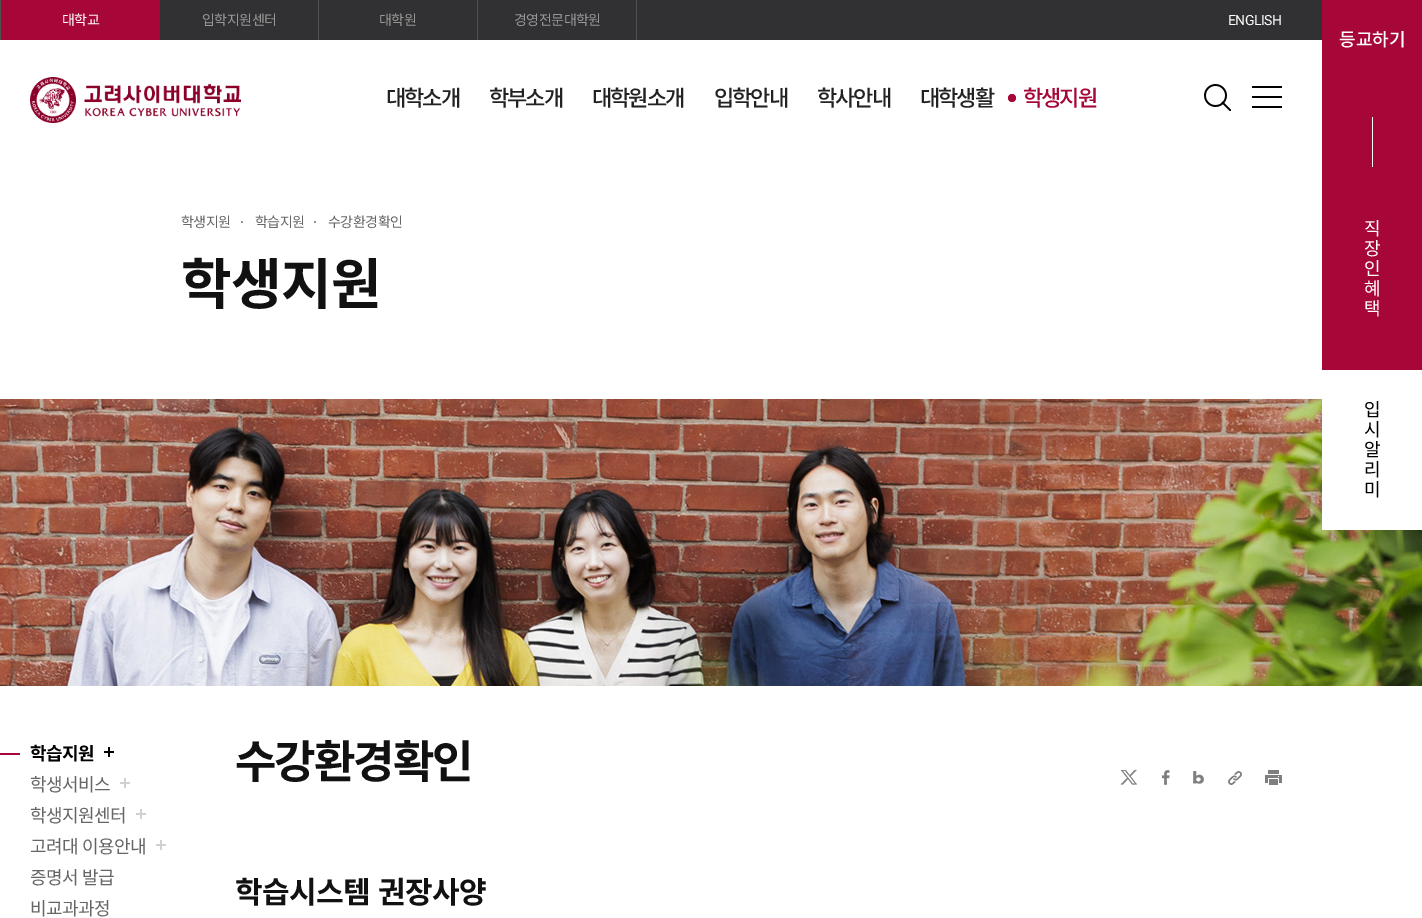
%!PS
<< /PageSize [1422 918] >> setpagedevice
/rgb { 3 { 255 div 3 1 roll } repeat setrgbcolor } def
/font { [ exch dup neg 0 0 3 -1 roll 0 0 ] selectfont } def
/circle { newpath 0 360 arc closepath } def
/picture { 5 dict begin { /h /w /y /x /name } { exch def } forall
  gsave x y translate w h scale
  w h 8 [w 0 0 h 0 0] name (r) file false 3 colorimage grestore end } def
0 918 translate 1 -1 scale
4 setmiterlimit
255 255 255 rgb
0 0 1422 918 rectfill
[
  [160 0 1162 40 49 49 51]
  [0 0 1 40 80 80 81]
  [1 0 159 40 167 6 56]
  [318 0 1 40 80 80 81]
  [477 0 1 40 80 80 81]
  [636 0 1 40 80 80 81]
] { aload pop rgb rectfill } forall
(img/1.rgb) 1204 84 27 27 picture
167 6 56 rgb
1322 0 100 370 rectfill
255 255 255 rgb
1372 117 1 50 rectfill
(img/4.rgb) 0 399 1422 287 picture
1322 399 100 131 rectfill
(img/2.rgb) 1252 86 30 22 picture
(img/3.rgb) 30 77 211 46 picture
167 6 56 rgb
1012 98 4 circle fill
[
  [241 221 2 2 150 150 150]
  [314 221 2 2 150 150 150]
  [0 753 20 2 167 6 56]
] { aload pop rgb rectfill } forall
(img/5.rgb) 104 747 10 10 picture
(img/6.rgb) 120 778 10 10 picture
(img/6.rgb) 136 809 10 10 picture
(img/6.rgb) 156 840 10 10 picture
(img/7.rgb) 1120 770 17 15 picture
(img/8.rgb) 1162 770 8 15 picture
(img/9.rgb) 1193 771 11 13 picture
(img/10.rgb) 1228 771 14 14 picture
(img/11.rgb) 1265 770 17 15 picture
/NotoSansKR-Regular 14 font
255 255 255 rgb
62 25 moveto -0.5 0 (대학교) ashow
152 152 153 rgb
202 25 moveto -0.5 0 (입학지원센터) ashow
379 25 moveto -0.5 0 (대학원) ashow
514 25 moveto -0.5 0 (경영전문대학원) ashow
/Roboto-Regular 14 font
255 255 255 rgb
1228 25 moveto -0.5 0 (ENGLISH) ashow
/NotoSansKR-Medium 18 font
1339 46 moveto (등교하기) show
/NotoSansKR-Regular 18 font
1364 235 moveto -0.5 0 (직) ashow
1364 255 moveto -0.5 0 (장) ashow
1364 275 moveto -0.5 0 (인) ashow
1364 295 moveto -0.5 0 (혜) ashow
1364 315 moveto -0.5 0 (택) ashow
0 0 0 rgb
1364 416 moveto -0.5 0 (입) ashow
1364 436 moveto -0.5 0 (시) ashow
1364 456 moveto -0.5 0 (알) ashow
1364 476 moveto -0.5 0 (리) ashow
1364 496 moveto -0.5 0 (미) ashow
/NotoSansKR-Medium 22 font
34 34 34 rgb
386 106 moveto -2 0 (대학소개) ashow
489 106 moveto -2 0 (학부소개) ashow
592 106 moveto -2 0 (대학원소개) ashow
714 106 moveto -2 0 (입학안내) ashow
817 106 moveto -2 0 (학사안내) ashow
920 106 moveto -2 0 (대학생활) ashow
167 6 56 rgb
1023 106 moveto -2 0 (학생지원) ashow
/NotoSansKR-Regular 14 font
102 102 102 rgb
181 227 moveto -0.5 0 (학생지원) ashow
255 227 moveto -0.5 0 (학습지원) ashow
328 227 moveto -0.5 0 (수강환경확인) ashow
/NotoSansKR-Bold 55 font
17 17 17 rgb
181 304 moveto -0.5 0 (학생지원) ashow
/NotoSansKR-Bold 18 font
0 0 0 rgb
30 760 moveto -0.5 0 (학습지원) ashow
/NotoSansKR-Regular 18 font
102 102 102 rgb
30 791 moveto -0.5 0 (학생서비스) ashow
30 822 moveto -0.5 0 (학생지원센터) ashow
30 853 moveto -0.5 0 (고려대 이용안내) ashow
30 884 moveto -0.5 0 (증명서 발급) ashow
30 915 moveto -0.5 0 (비교과과정) ashow
/NotoSansKR-Bold 45 font
17 17 17 rgb
235 778 moveto -2 0 (수강환경확인) ashow
/NotoSansKR-Bold 30 font
235 903 moveto 1 0 32 -0.5 0 (학습시스템 권장사양) awidthshow
showpage
